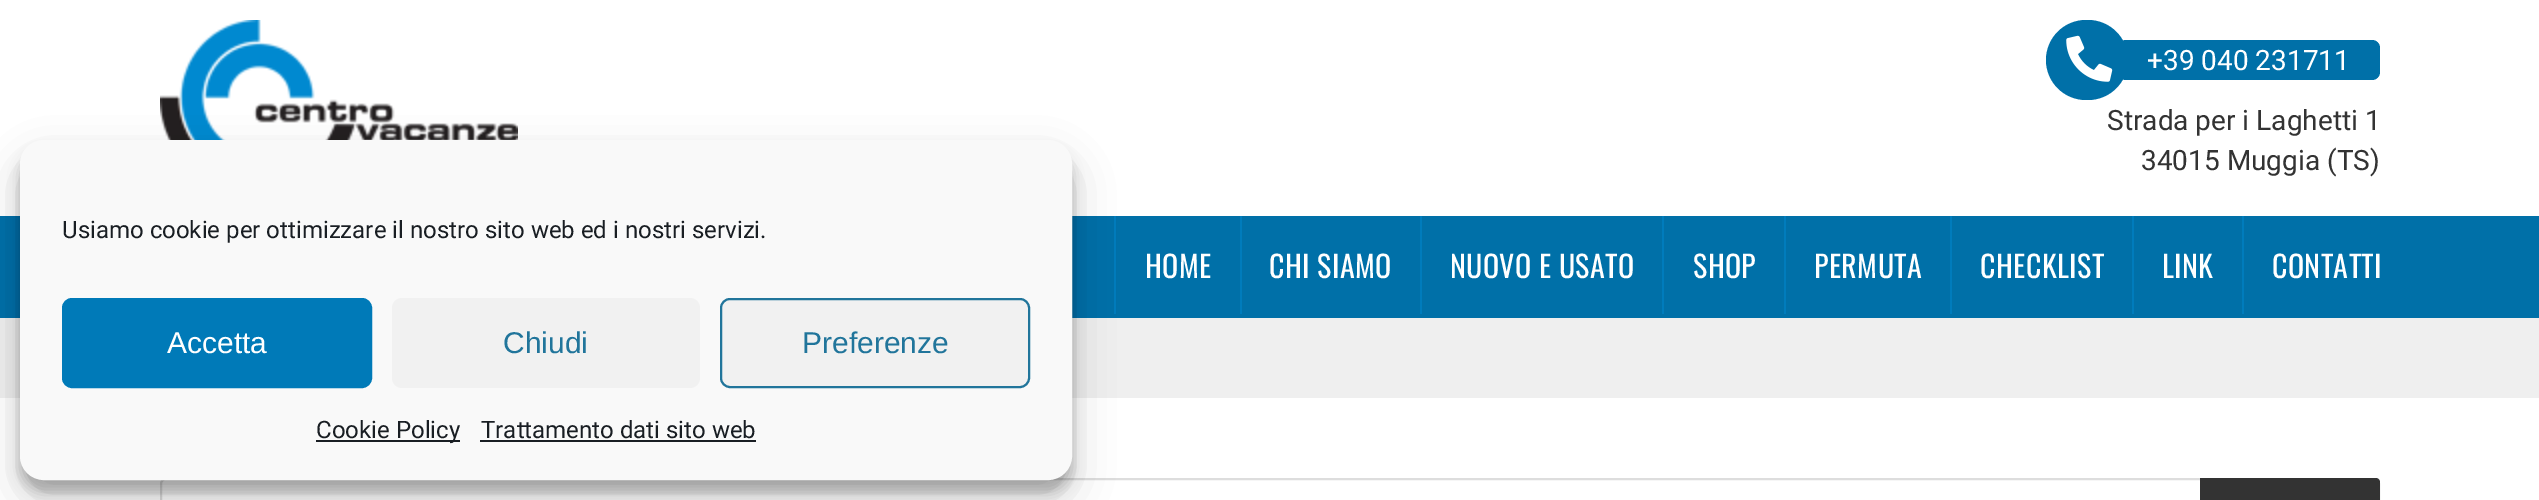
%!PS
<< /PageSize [2539 500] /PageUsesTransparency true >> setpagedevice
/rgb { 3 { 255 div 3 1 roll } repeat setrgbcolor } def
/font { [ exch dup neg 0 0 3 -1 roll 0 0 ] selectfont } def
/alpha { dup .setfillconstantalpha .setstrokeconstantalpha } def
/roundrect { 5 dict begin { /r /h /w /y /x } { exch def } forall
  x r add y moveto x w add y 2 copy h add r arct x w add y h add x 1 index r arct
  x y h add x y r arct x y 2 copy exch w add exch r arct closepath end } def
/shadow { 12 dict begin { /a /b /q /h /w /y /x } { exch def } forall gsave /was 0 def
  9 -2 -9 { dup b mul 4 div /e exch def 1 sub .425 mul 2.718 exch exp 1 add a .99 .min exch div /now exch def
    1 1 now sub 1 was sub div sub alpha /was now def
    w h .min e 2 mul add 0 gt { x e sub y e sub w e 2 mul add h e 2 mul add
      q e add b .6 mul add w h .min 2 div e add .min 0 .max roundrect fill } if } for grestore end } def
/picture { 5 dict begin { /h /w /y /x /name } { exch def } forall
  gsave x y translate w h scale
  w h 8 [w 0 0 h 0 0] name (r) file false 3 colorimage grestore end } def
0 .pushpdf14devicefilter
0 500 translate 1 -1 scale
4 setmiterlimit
255 255 255 rgb
0 0 2539 500 rectfill
(img/1.rgb) 160 20 358 120 picture
0 112 168 rgb
2118 40 262 40 8 roundrect fill
2088 20 moveto 2086 20 lineto 2064 20 2046 38 2046 60 curveto 2046 82 2064 100 2086 100 curveto 2088 100 lineto 2110 100 2128 82 2128 60 curveto 2128 38 2110 20 2088 20 curveto closepath fill
(img/2.rgb) 2066 35 47 47 picture
0 216 2539 102 rectfill
239 239 239 rgb
0 318 2539 80 rectfill
221 221 221 rgb
2 setlinewidth
161 479 2218 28 5 roundrect stroke
0 0 0 rgb
20 152 1052 340 24 6 0.23 shadow
0 124 188 rgb
1114 216 2 98 rectfill
0 0 0 rgb
20 160 1052 340 24 20 0.19 shadow
249 249 249 rgb
21 141 1050 338 23 roundrect gsave fill grestore
stroke
0 122 184 rgb
63 299 308 88 9 roundrect gsave fill grestore
stroke
241 241 241 rgb
392 298 308 90 10 roundrect fill
721 299 308 88 9 roundrect gsave fill grestore
33 117 155 rgb
stroke
[
  [316 440 144 2 25 30 35]
  [480 440 276 2 25 30 35]
  [1240 216 2 98 0 124 188]
  [1420 216 2 98 0 124 188]
  [1662 216 2 98 0 124 188]
  [1784 216 2 98 0 124 188]
  [1950 216 2 98 0 124 188]
  [2132 216 2 98 0 124 188]
  [2242 216 2 98 0 124 188]
] { aload pop rgb rectfill } forall
51 51 51 rgb
2200 478 moveto 2376 478 lineto 2378 478 2380 480 2380 482 curveto 2380 500 lineto 2380 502 2378 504 2376 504 curveto 2200 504 lineto closepath fill
/Roboto-Regular 28 font
255 255 255 rgb
2147 70 moveto (+39 040 231711) show
51 51 51 rgb
2107 130 moveto (Strada per i Laghetti 1) show
2141 170 moveto (34015 Muggia \(TS\)) show
/Roboto-Regular 24 font
25 30 35 rgb
62 238 moveto (Usiamo cookie per ottimizzare il nostro sito web ed i nostri servizi.) show
/LiberationSans-Regular 30 font
255 255 255 rgb
167 353 moveto (Accetta) show
33 117 155 rgb
503 353 moveto (Chiudi) show
802 353 moveto (Preferenze) show
/Roboto-Regular 24 font
25 30 35 rgb
316 438 moveto (Cookie Policy) show
481 438 moveto (Trattamento dati sito web) show
/Oswald-Regular 30 font
255 255 255 rgb
1145 278 moveto 0.4 0 (HOME) ashow
1269 278 moveto 0.4 0 (CHI SIAMO) ashow
1450 278 moveto 0.4 0 (NUOVO E USATO) ashow
1693 278 moveto 0.4 0 (SHOP) ashow
1814 278 moveto 0.4 0 (PERMUTA) ashow
1980 278 moveto 0.4 0 (CHECKLIST) ashow
2162 278 moveto 0.4 0 (LINK) ashow
2272 278 moveto 0.4 0 (CONTATTI) ashow
.poppdf14devicefilter showpage
